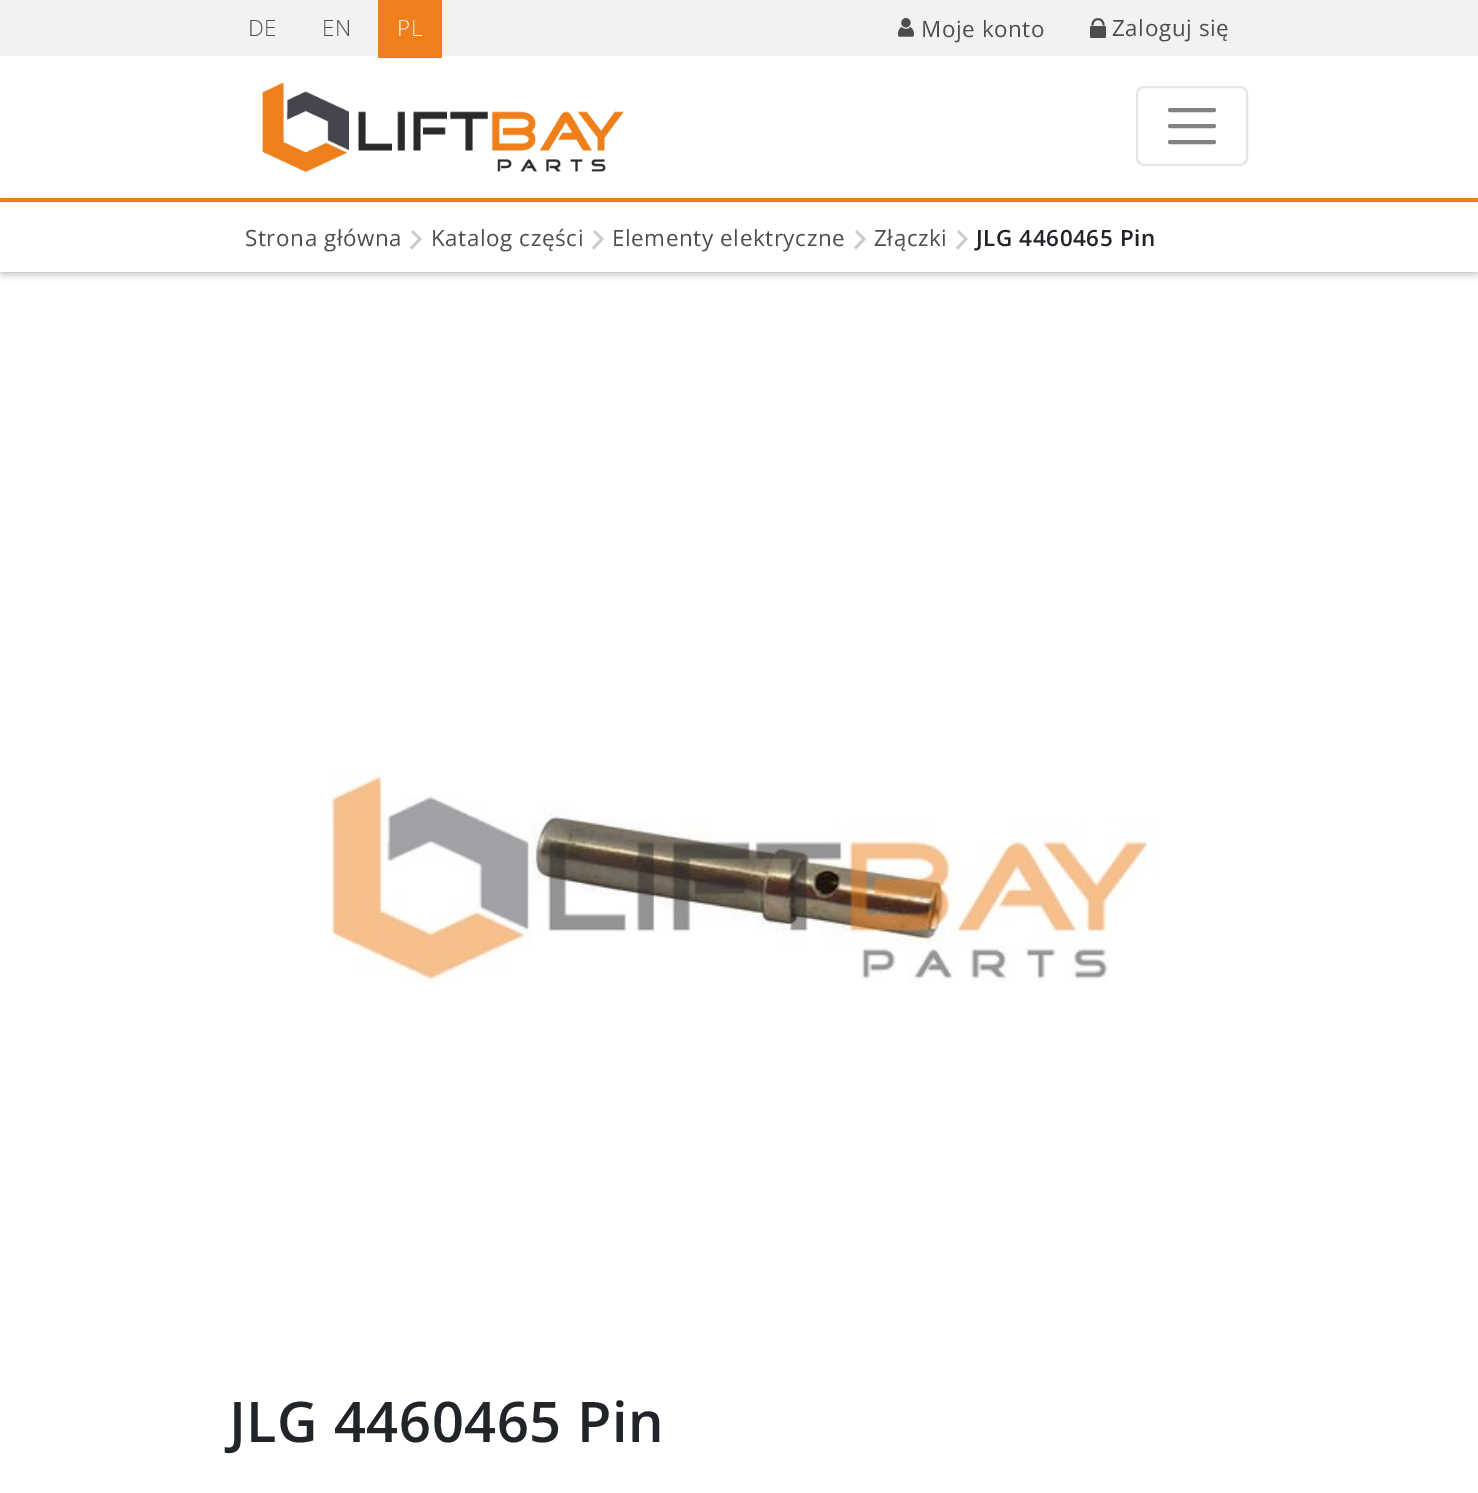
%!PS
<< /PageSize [1478 1493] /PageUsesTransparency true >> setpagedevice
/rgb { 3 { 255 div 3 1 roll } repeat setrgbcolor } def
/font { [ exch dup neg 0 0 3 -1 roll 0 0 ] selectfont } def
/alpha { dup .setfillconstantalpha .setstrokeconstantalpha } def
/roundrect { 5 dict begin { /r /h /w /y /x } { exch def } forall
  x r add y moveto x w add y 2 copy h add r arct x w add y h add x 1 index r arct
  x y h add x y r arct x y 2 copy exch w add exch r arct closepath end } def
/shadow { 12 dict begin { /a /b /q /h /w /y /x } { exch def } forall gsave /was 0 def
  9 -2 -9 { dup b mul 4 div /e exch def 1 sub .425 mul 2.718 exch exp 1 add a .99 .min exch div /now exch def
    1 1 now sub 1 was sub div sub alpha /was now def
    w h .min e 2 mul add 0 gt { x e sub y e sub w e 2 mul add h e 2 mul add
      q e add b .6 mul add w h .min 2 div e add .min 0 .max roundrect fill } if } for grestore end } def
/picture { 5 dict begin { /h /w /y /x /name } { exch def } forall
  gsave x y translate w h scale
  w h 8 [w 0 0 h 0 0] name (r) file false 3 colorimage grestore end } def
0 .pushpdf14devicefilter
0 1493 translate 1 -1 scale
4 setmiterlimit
255 255 255 rgb
0 0 1478 1493 rectfill
242 242 242 rgb
0 0 1478 56 rectfill
239 127 26 rgb
378 0 64 58 rectfill
(img/1.rgb) 898 18 16 19 picture
77 77 77 rgb
1090 26 16 12 1.5 roundrect fill
1.9 setlinewidth
1092.5 25.5 moveto 1092 17 1104 17 1103.5 25.5 curveto stroke
(img/2.rgb) 262 82 362 90 picture
230 230 230 rgb
2 setlinewidth
1137 87 110 78 7 roundrect stroke
128 128 128 rgb
4 setlinewidth
1 setlinecap
1170 110 moveto 1214 110 lineto 1170 126 moveto 1214 126 lineto 1170 142 moveto 1214 142 lineto stroke
gsave
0 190 moveto 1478 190 lineto 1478 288 lineto 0 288 lineto closepath 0 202 moveto 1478 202 lineto 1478 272 lineto 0 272 lineto closepath eoclip newpath
153 153 153 rgb
2 206 1474 66 0 5 1 shadow
grestore
239 127 26 rgb
0 198 1478 4 rectfill
204 204 204 rgb
2.8 setlinewidth
0 setlinecap
411 248.5 moveto 420 239 lineto 412 231 lineto stroke
593 248.5 moveto 602 239 lineto 594 231 lineto stroke
855 248.5 moveto 864 239 lineto 856 231 lineto stroke
957 248.5 moveto 966 239 lineto 958 231 lineto stroke
(img/3.rgb) 330 773 828 210 picture
/OpenSans-Light 22.4 font
77 77 77 rgb
248 36 moveto 0.6 0 (DE) ashow
322 36 moveto 0.6 0 (EN) ashow
245 245 245 rgb
397 36 moveto 0.6 0 (PL) ashow
/OpenSans-Regular 22.4 font
77 77 77 rgb
921 37 moveto 0.6 0 (Moje konto) ashow
1112 36 moveto 0.6 0 (Zaloguj się) ashow
245 246 moveto 0.6 0 (Strona główna) ashow
431 246 moveto 0.6 0 (Katalog części) ashow
612 246 moveto 0.6 0 (Elementy elektryczne) ashow
874 246 moveto 0.6 0 (Złączki) ashow
/OpenSans-SemiBold 22.4 font
33 37 41 rgb
976 246 moveto 0.6 0 (JLG 4460465 Pin) ashow
/OpenSans-SemiBold 56 font
229 1442 moveto 0.6 0 (JLG 4460465 Pin) ashow
.poppdf14devicefilter showpage
